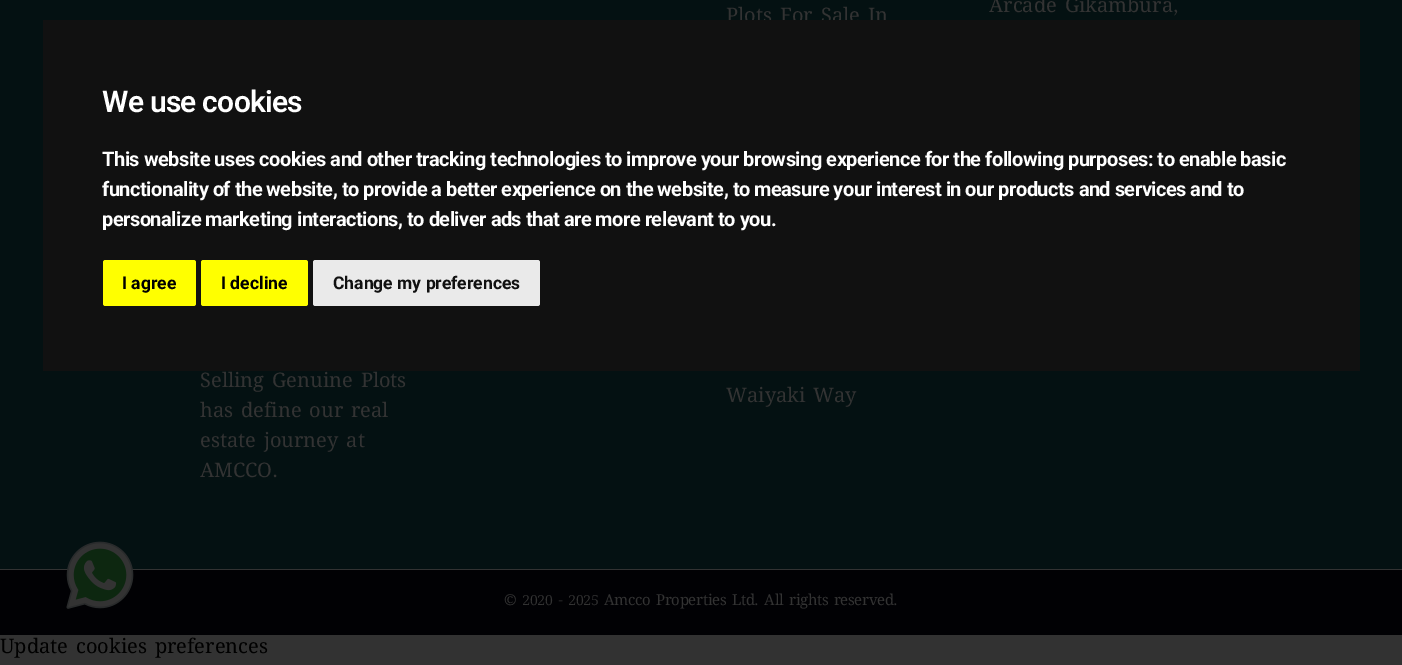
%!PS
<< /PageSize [1402 665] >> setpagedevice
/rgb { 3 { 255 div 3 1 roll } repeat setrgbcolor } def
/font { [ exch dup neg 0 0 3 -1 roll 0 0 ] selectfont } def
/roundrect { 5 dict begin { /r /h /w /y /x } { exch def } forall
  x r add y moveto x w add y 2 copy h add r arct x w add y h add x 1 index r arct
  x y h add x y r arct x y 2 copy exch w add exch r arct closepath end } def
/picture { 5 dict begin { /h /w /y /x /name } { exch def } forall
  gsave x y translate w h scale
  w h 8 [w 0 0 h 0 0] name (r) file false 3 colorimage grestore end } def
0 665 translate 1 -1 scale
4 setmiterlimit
50 50 50 rgb
0 0 1402 665 rectfill
4 17 18 rgb
0 0 1402 569 rectfill
1 1 4 rgb
0 570 1402 65 rectfill
(img/1.rgb) 66 541 68 68 picture
/NotoSerifOriya-Regular 20 font
51 51 51 rgb
[
  [(Plots For Sale In) 726 22]
  [(Waiyaki Way) 726 402]
  [(Arcade Gikambura,) 989 12]
  [(Selling Genuine Plots) 200 387]
  [(has define our real) 200 417]
  [(estate journey at) 200 447]
  [(AMCCO.) 200 477]
] { aload pop moveto show } forall
/NotoSerifOriya-Regular 15 font
504 605 moveto -0.38 0 (© 2020 - 2025 Amcco Properties Ltd. All rights reserved.) ashow
17 17 17 rgb
43 20 1317 351 rectfill
/Roboto-SemiBold 30 font
255 255 255 rgb
102 112 moveto -0.75 0 (We use cookies) ashow
/Roboto-Bold 20 font
102 166 moveto -0.5 0 (This website uses cookies and other tracking technologies to improve your browsing experience for the following purposes: to enable basic) ashow
102 196 moveto -0.5 0 (functionality of the website, to provide a better experience on the website, to measure your interest in our products and services and to) ashow
102 226 moveto -0.5 0 (personalize marketing interactions, to deliver ads that are more relevant to you.) ashow
255 255 0 rgb
103 260 93 46 2.5 roundrect fill
/Roboto-Bold 17.5 font
0 0 0 rgb
122 289 moveto (I agree) show
255 255 0 rgb
201 260 107 46 2.5 roundrect fill
0 0 0 rgb
221 289 moveto (I decline) show
234 234 234 rgb
313 260 227 46 2.5 roundrect fill
17 17 17 rgb
333 289 moveto (Change my preferences) show
/NotoSerifOriya-Regular 20 font
0 0 0 rgb
0 653 moveto (Update cookies preferences) show
showpage
